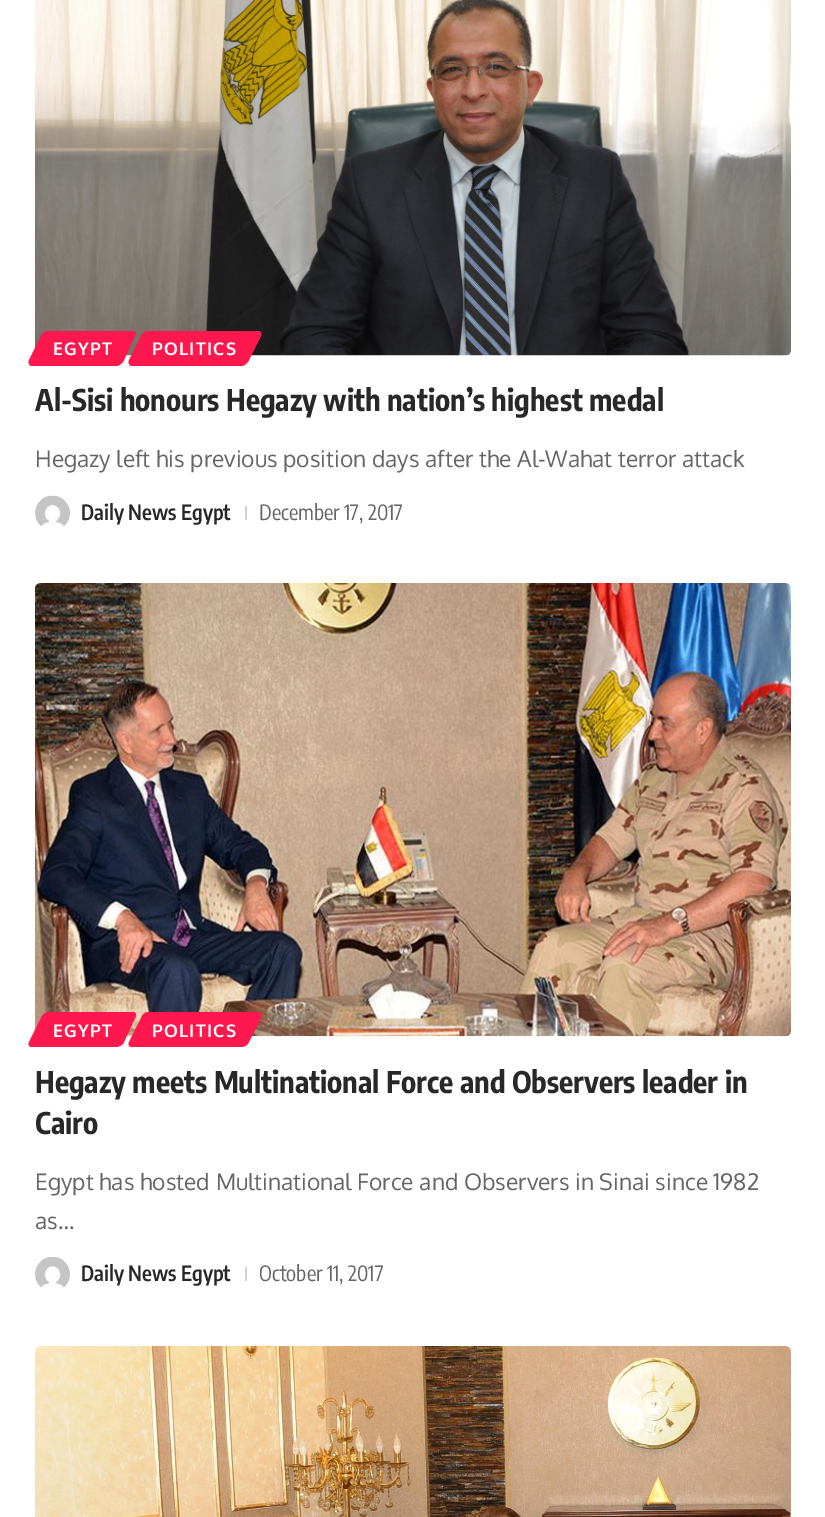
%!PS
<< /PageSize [825 1517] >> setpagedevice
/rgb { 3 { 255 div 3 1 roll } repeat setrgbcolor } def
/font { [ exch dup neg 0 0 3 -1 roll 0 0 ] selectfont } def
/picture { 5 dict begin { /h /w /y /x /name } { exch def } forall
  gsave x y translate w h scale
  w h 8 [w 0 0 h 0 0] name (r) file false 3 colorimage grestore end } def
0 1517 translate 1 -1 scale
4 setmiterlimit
255 255 255 rgb
0 0 825 1517 rectfill
(img/1.rgb) 35 0 756 356 picture
255 24 78 rgb
48 331 moveto 133 331 lineto 136 331 137 333 135 336 curveto 124 360 lineto 123 363 119 366 116 366 curveto 32 366 lineto 29 366 28 363 29 360 curveto 41 336 lineto 42 333 46 331 48 331 curveto closepath fill
148 331 moveto 258 331 lineto 261 331 262 333 261 336 curveto 249 360 lineto 248 363 244 366 241 366 curveto 132 366 lineto 129 366 128 363 129 360 curveto 141 336 lineto 142 333 145 331 148 331 curveto closepath fill
(img/2.rgb) 35 495 35 32 picture
209 209 209 rgb
245 506 2 14 rectfill
(img/3.rgb) 35 583 756 454 picture
255 24 78 rgb
48 1012 moveto 133 1012 lineto 136 1012 137 1015 135 1018 curveto 124 1042 lineto 123 1045 119 1047 116 1047 curveto 32 1047 lineto 29 1047 28 1045 29 1042 curveto 41 1018 lineto 42 1015 46 1012 48 1012 curveto closepath fill
148 1012 moveto 258 1012 lineto 261 1012 262 1015 261 1018 curveto 249 1042 lineto 248 1045 244 1047 241 1047 curveto 132 1047 lineto 129 1047 128 1045 129 1042 curveto 141 1018 lineto 142 1015 145 1012 148 1012 curveto closepath fill
(img/4.rgb) 35 1257 35 31 picture
209 209 209 rgb
245 1267 2 14 rectfill
(img/5.rgb) 35 1346 756 171 picture
/Oxygen-Bold 17.5 font
255 255 255 rgb
53 355 moveto 1.25 0 (EGYPT) ashow
152 355 moveto 1.25 0 (POLITICS) ashow
/EncodeSansCondensed-Bold 29.75 font
40 40 40 rgb
35 411 moveto (Al-Sisi honours Hegazy with nation’s highest medal) show
/Oxygen-Regular 22.75 font
102 102 102 rgb
35 467 moveto (Hegazy left his previous position days after the Al-Wahat terror attack) show
/EncodeSansCondensed-SemiBold 21 font
40 40 40 rgb
81 520 moveto (Daily News Egypt) show
/EncodeSansCondensed-Regular 21 font
102 102 102 rgb
259 520 moveto (December 17, 2017) show
/Oxygen-Bold 17.5 font
255 255 255 rgb
53 1037 moveto 1.25 0 (EGYPT) ashow
152 1037 moveto 1.25 0 (POLITICS) ashow
/EncodeSansCondensed-Bold 29.75 font
40 40 40 rgb
35 1093 moveto (Hegazy meets Multinational Force and Observers leader in) show
35 1134 moveto (Cairo) show
/Oxygen-Regular 22.75 font
102 102 102 rgb
35 1190 moveto (Egypt has hosted Multinational Force and Observers in Sinai since 1982) show
35 1229 moveto (as…) show
/EncodeSansCondensed-SemiBold 21 font
40 40 40 rgb
81 1281 moveto (Daily News Egypt) show
/EncodeSansCondensed-Regular 21 font
102 102 102 rgb
259 1281 moveto (October 11, 2017) show
showpage
